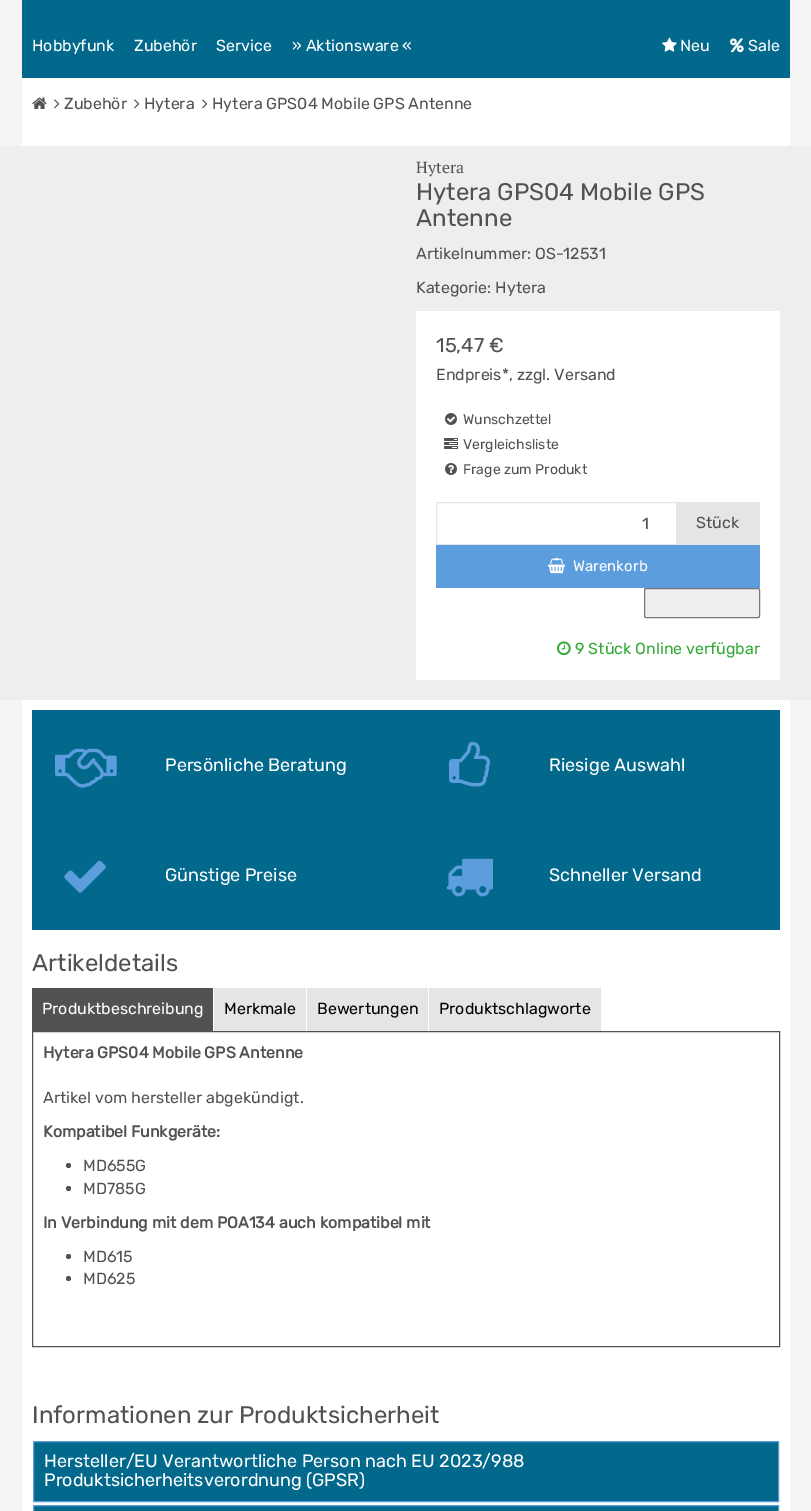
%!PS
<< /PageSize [811 1511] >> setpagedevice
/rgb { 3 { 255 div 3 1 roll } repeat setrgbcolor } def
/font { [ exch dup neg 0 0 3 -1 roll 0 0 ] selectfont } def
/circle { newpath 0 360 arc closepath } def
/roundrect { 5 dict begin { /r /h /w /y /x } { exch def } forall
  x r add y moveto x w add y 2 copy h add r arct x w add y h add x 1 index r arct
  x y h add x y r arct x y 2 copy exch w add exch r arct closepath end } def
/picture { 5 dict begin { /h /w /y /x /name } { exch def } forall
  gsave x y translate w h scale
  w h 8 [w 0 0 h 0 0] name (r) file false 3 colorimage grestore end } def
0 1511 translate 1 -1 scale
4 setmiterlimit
245 245 245 rgb
0 0 811 1511 rectfill
2 105 140 rgb
22 0 768 78 rectfill
(img/1.rgb) 662 37 15 15 picture
(img/2.rgb) 730 38 14 15 picture
255 255 255 rgb
22 78 768 68 rectfill
(img/3.rgb) 32 97 15 12 picture
(img/4.rgb) 54 99 6 10 picture
(img/4.rgb) 134 99 6 10 picture
(img/4.rgb) 202 99 6 10 picture
238 238 238 rgb
0 146 811 554 rectfill
255 255 255 rgb
416 311 364 369 rectfill
(img/5.rgb) 445 413 12 12 picture
(img/6.rgb) 444 438 14 11 picture
(img/7.rgb) 445 463 12 12 picture
229 229 229 rgb
436.5 502.5 240 42 rectstroke
677 502 83 43 rectfill
92 157 221 rgb
436 545 324 43 rectfill
(img/8.rgb) 548 558 18 16 picture
239 239 239 rgb
644.5 588.5 115 29 1.5 roundrect gsave fill grestore
118 118 118 rgb
stroke
(img/9.rgb) 557 641 14 15 picture
255 255 255 rgb
22 700 768 811 rectfill
2 105 140 rgb
32 710 748 220 rectfill
(img/10.rgb) 55 748 62 40 picture
(img/11.rgb) 449 741 42 46 picture
(img/12.rgb) 64 860 42 33 picture
(img/13.rgb) 446 858 47 39 picture
[
  [32 988 181 43 82 82 82]
  [214 988 92 43 229 229 229]
  [307 988 121 43 229 229 229]
  [429 988 172 43 229 229 229]
] { aload pop rgb rectfill } forall
82 82 82 rgb
32.5 1031.5 747 315 rectstroke
68.5 1165.5 2.5 circle fill
68.5 1188.5 2.5 circle fill
68.5 1256.5 2.5 circle fill
68.5 1278.5 2.5 circle fill
2 105 140 rgb
33.5 1441.5 moveto 778.5 1441.5 lineto 778.5 1501.5 lineto 33.5 1501.5 lineto closepath gsave fill grestore
92 157 221 rgb
stroke
2 105 140 rgb
33.5 1505.5 moveto 778.5 1505.5 lineto 778.5 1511.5 lineto 33.5 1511.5 lineto closepath gsave fill grestore
92 157 221 rgb
stroke
/Rubik-Light 16 font
255 255 255 rgb
[
  [(Hobbyfunk) 32 51]
  [(Zubehör) 134 51]
  [(Service) 216 51]
  [(» Aktionsware «) 292 51]
  [(Neu) 680 51]
  [(Sale) 748 51]
] { aload pop moveto show } forall
82 82 82 rgb
[
  [(Zubehör) 64 109]
  [(Hytera) 144 109]
  [(Hytera GPS04 Mobile GPS Antenne) 212 109]
] { aload pop moveto show } forall
/PTSerif-Regular 16 font
416 173 moveto (Hytera) show
/Rubik-Light 24 font
416 200 moveto (Hytera GPS04 Mobile GPS) show
416 226 moveto (Antenne) show
/Rubik-Light 16 font
416 259 moveto (Artikelnummer: OS-12531) show
416 293 moveto (Kategorie: Hytera) show
/Rubik-Light 20 font
436 352 moveto (15,47 €) show
/Rubik-Light 16 font
436 380 moveto (Endpreis*, zzgl. Versand) show
/Rubik-Light 14 font
[
  [(Wunschzettel) 463 424]
  [(Vergleichsliste) 463 449]
  [(Frage zum Produkt) 463 474]
] { aload pop moveto show } forall
/Rubik-Light 16 font
642 529 moveto (1) show
696 528 moveto (Stück) show
/Rubik-Light 15 font
255 255 255 rgb
573 571 moveto (Warenkorb) show
/Rubik-Light 16 font
50 170 55 rgb
575 654 moveto (9 Stück Online verfügbar) show
/Rubik-Light 18 font
255 255 255 rgb
[
  [(Persönliche Beratung) 165 771]
  [(Riesige Auswahl) 549 771]
  [(Günstige Preise) 165 881]
  [(Schneller Versand) 549 881]
] { aload pop moveto show } forall
/Rubik-Light 24 font
82 82 82 rgb
32 971 moveto (Artikeldetails) show
/Rubik-Light 16 font
255 255 255 rgb
42 1014 moveto (Produktbeschreibung) show
0 0 0 rgb
[
  [(Merkmale) 224 1014]
  [(Bewertungen) 317 1014]
  [(Produktschlagworte) 439 1014]
] { aload pop moveto show } forall
/Rubik-Bold 16 font
82 82 82 rgb
43 1058 moveto (Hytera GPS04 Mobile GPS Antenne) show
/Rubik-Light 16 font
43 1103 moveto (Artikel vom hersteller abgekündigt.) show
/Rubik-Bold 16 font
43 1137 moveto (Kompatibel Funkgeräte:) show
/Rubik-Light 16 font
83 1171 moveto (MD655G) show
83 1194 moveto (MD785G) show
/Rubik-Bold 16 font
43 1228 moveto (In Verbindung mit dem POA134 auch kompatibel mit) show
/Rubik-Light 16 font
83 1262 moveto (MD615) show
83 1284 moveto (MD625) show
/Rubik-Light 24 font
32 1423 moveto (Informationen zur Produktsicherheit) show
/Rubik-Light 18 font
255 255 255 rgb
44 1467 moveto (Hersteller/EU Verantwortliche Person nach EU 2023/988) show
44 1486 moveto (Produktsicherheitsverordnung \(GPSR\)) show
showpage
